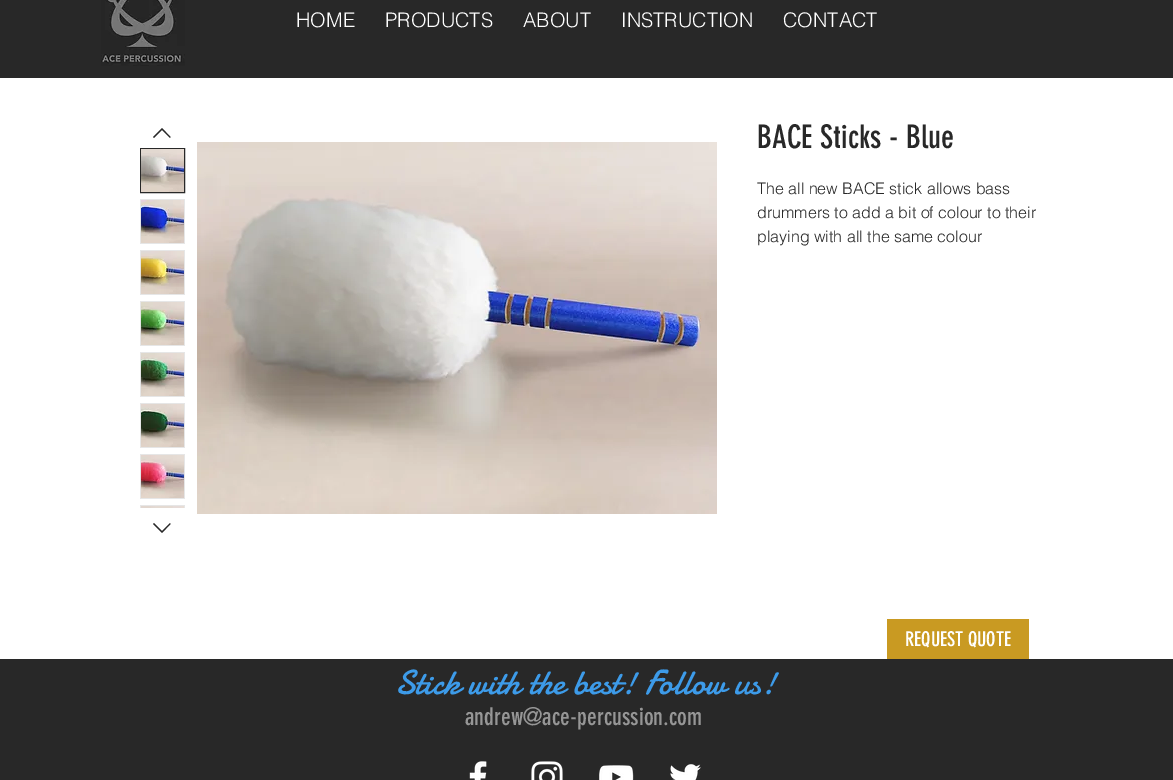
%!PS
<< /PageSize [1173 780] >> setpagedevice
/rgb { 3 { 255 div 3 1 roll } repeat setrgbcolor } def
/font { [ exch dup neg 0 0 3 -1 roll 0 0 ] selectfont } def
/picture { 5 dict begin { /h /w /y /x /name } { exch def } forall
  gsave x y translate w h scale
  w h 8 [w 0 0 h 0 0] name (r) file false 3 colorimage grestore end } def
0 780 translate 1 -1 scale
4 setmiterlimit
255 255 255 rgb
0 0 1173 780 rectfill
40 40 40 rgb
0 0 1173 78 rectfill
(img/1.rgb) 101 0 84 66 picture
162 128 moveto 170.5 137 lineto 170 138 lineto 162 130 lineto 154 138 lineto 153 137 lineto closepath eofill
140.5 148.5 44 44 rectstroke
(img/2.rgb) 141 149 43 43 picture
230 230 230 rgb
140 199 45 45 rectfill
(img/3.rgb) 141 200 43 43 picture
140 250 45 45 rectfill
(img/4.rgb) 141 251 43 43 picture
140 301 45 45 rectfill
(img/5.rgb) 141 302 43 43 picture
140 352 45 45 rectfill
(img/6.rgb) 141 353 43 43 picture
140 403 45 45 rectfill
(img/7.rgb) 141 404 43 43 picture
140 454 45 45 rectfill
(img/8.rgb) 141 455 43 43 picture
140 505 45 3 rectfill
(img/9.rgb) 141 506 43 2 picture
40 40 40 rgb
170 523 moveto 170.5 524 lineto 162 533 lineto 153 524 lineto 154 523 lineto 162 531 lineto closepath eofill
(img/10.rgb) 197 142 520 372 picture
201 154 34 rgb
887 619 142 40 rectfill
40 40 40 rgb
0 659 1173 121 rectfill
(img/11.rgb) 469 761 18 19 picture
(img/12.rgb) 531 761 32 19 picture
(img/13.rgb) 599 765 35 15 picture
(img/14.rgb) 670 764 31 16 picture
/helvetica-Light 20 font
255 255 255 rgb
[
  [(HOME) 296 27]
  [(PRODUCTS) 385 27]
  [(ABOUT) 523 27]
  [(INSTRUCTION) 621 27]
  [(CONTACT) 783 27]
] { aload pop moveto show } forall
/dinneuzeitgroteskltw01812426-Regular 32 font
40 40 40 rgb
757 148 moveto (BACE Sticks - Blue) show
/helvetica-Light 16 font
[
  [(The all new BACE stick allows bass) 757 194]
  [(drummers to add a bit of colour to their) 757 218]
  [(playing with all the same colour) 757 242]
] { aload pop moveto show } forall
/dinneuzeitgroteskltw01812426-Regular 20 font
255 255 255 rgb
905 646 moveto (REQUEST QUOTE) show
/Damion-Regular 35 font
61 155 233 rgb
395 694 moveto (Stick with the best! Follow us!) show
/dinneuzeitgroteskltw01812426-Regular 24 font
150 150 150 rgb
465 725 moveto (andrew@ace-percussion.com) show
showpage
